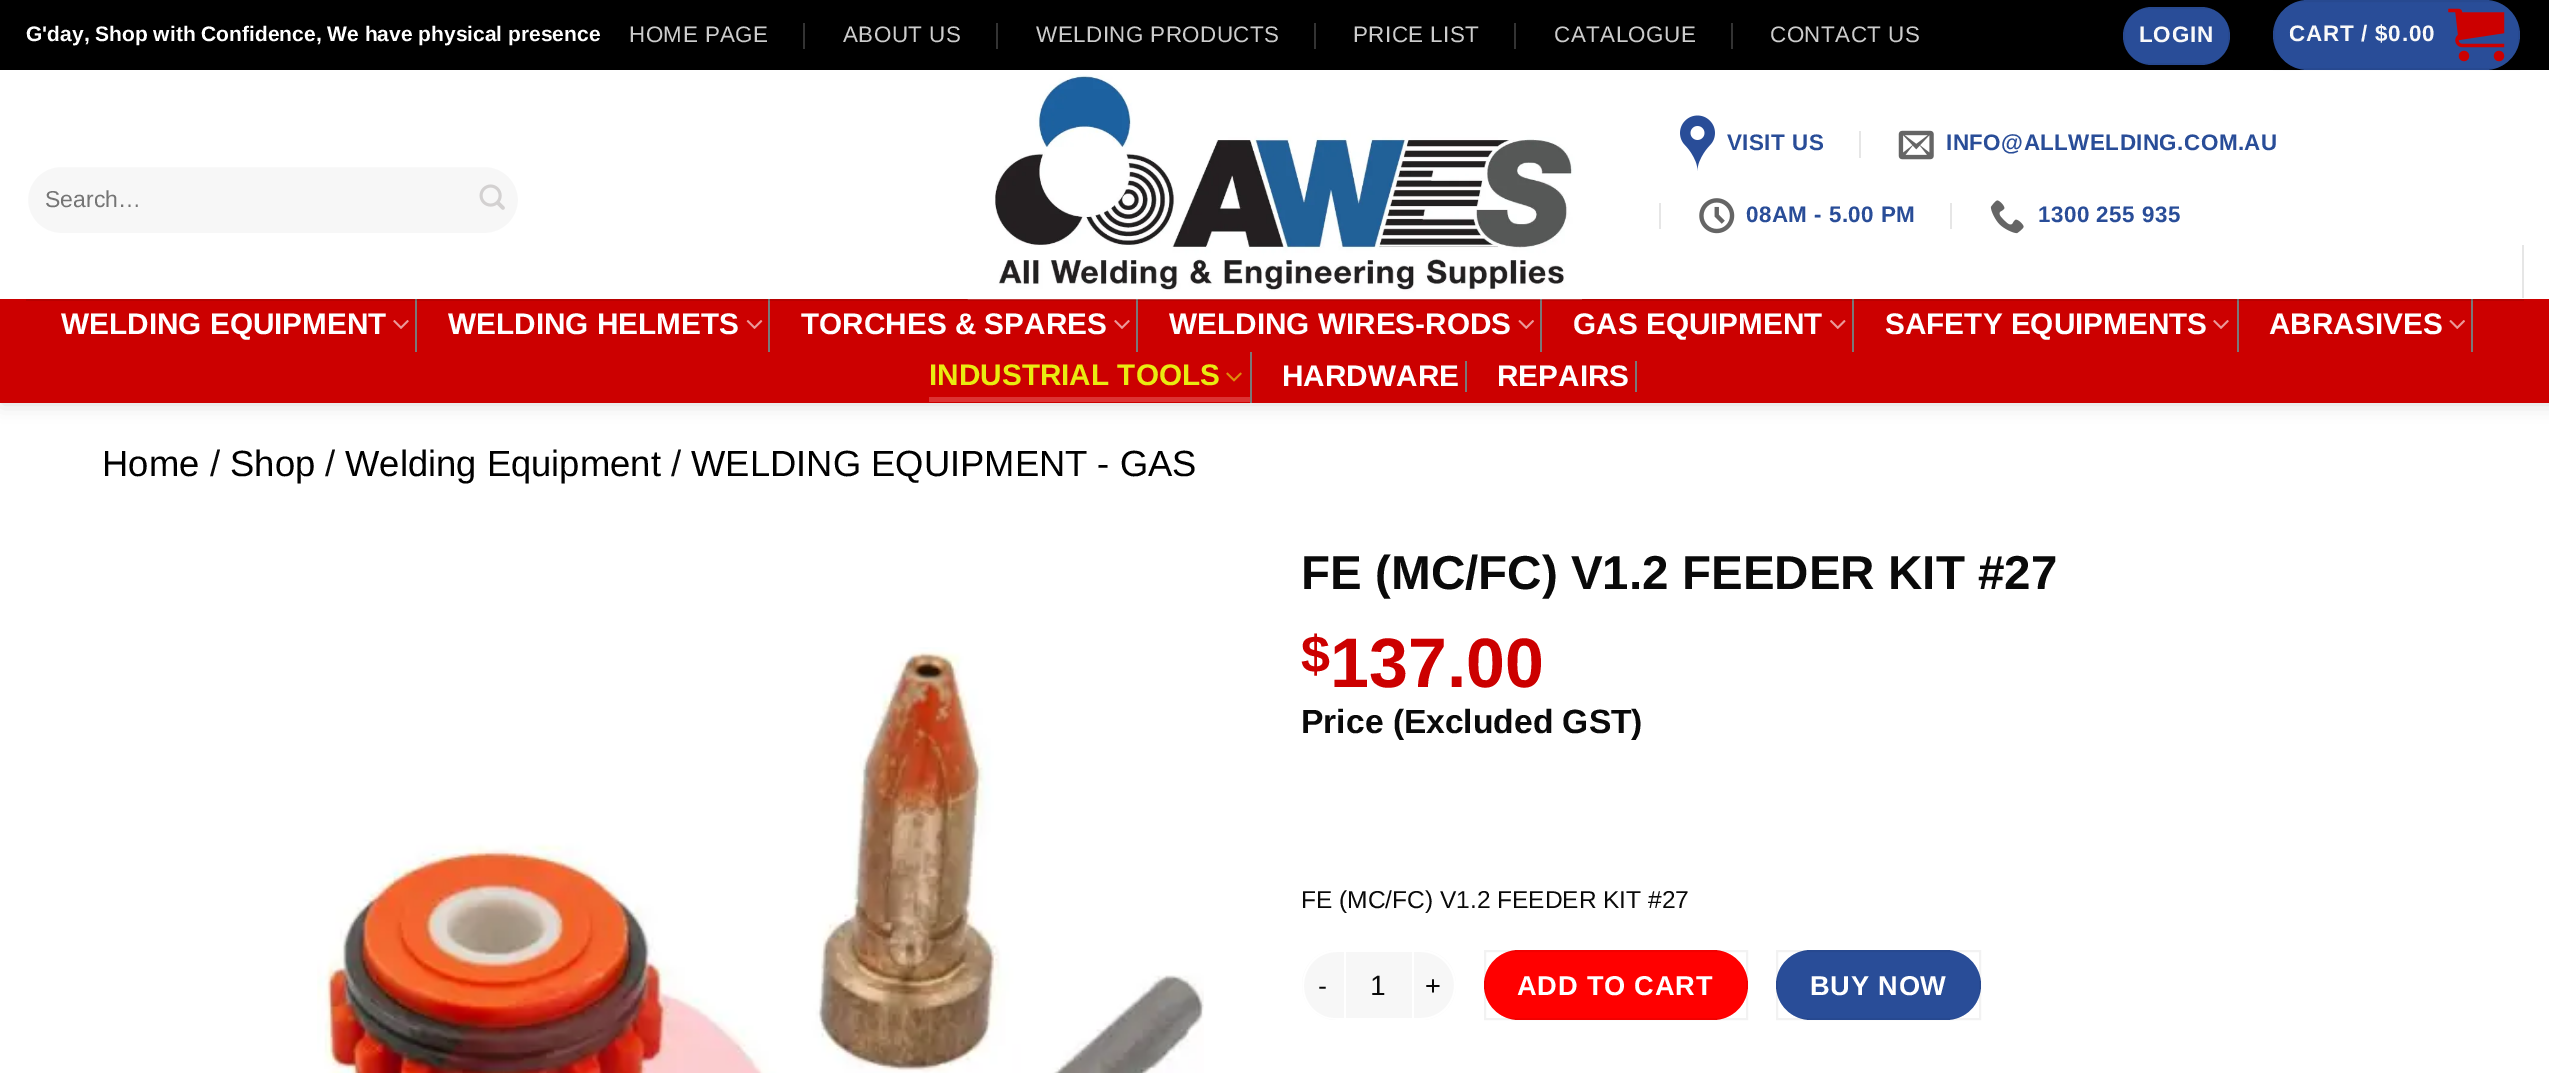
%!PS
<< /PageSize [2549 1073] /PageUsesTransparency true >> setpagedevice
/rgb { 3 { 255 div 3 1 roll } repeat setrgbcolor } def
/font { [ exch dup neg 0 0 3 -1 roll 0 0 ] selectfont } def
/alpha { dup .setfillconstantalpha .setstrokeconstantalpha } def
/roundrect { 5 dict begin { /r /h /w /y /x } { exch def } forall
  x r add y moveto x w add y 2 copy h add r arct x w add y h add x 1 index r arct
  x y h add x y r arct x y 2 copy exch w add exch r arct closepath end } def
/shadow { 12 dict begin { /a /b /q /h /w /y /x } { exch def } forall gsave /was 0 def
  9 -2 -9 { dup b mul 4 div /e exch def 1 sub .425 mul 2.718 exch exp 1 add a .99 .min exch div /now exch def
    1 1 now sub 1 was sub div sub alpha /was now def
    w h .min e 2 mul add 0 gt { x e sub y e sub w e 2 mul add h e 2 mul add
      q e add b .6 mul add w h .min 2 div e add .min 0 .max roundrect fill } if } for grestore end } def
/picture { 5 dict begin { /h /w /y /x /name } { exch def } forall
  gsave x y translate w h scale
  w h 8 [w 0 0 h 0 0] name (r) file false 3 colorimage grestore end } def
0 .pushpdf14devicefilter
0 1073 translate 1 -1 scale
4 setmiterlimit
255 255 255 rgb
0 0 2549 1073 rectfill
0 0 0 rgb
2 2 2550 402 0 9 0.15 shadow
[
  [0 70 2549 229 255 255 255]
  [0 0 2549 70 0 0 0]
  [803 23 2 26 51 51 51]
  [996 23 2 26 51 51 51]
  [1314 23 2 26 51 51 51]
  [1514 23 2 26 51 51 51]
  [1731 23 2 26 51 51 51]
] { aload pop rgb rectfill } forall
41 77 152 rgb
2123 7 107 58 29 roundrect fill
0.05 alpha
0 0 0 rgb
2 setlinewidth
2124 8 105 56 rectstroke
1 alpha
41 77 152 rgb
2273 0 247 70 35 roundrect fill
0.05 alpha
0 0 0 rgb
2274 1 245 68 rectstroke
1 alpha
(img/1.rgb) 2448 8 57 54 picture
247 247 247 rgb
27 166 492 68 34 roundrect gsave fill grestore
255 255 255 rgb
stroke
(img/2.rgb) 479 184 26 26 picture
[
  [0 299 2549 104 204 0 0]
  [1136 299 2 53 122 120 120]
  [1540 299 2 53 122 120 120]
] { aload pop rgb rectfill } forall
(img/3.rgb) 967 75 615 225 picture
(img/4.rgb) 1680 115 35 56 picture
230 230 230 rgb
1859 131 2 27 rectfill
(img/5.rgb) 1898 130 36 30 picture
1659 203 2 26 rectfill
(img/6.rgb) 1699 198 36 36 picture
1950 203 2 26 rectfill
(img/7.rgb) 1990 200 34 34 picture
[
  [2522 245 2 53 230 230 230]
  [415 299 2 53 122 120 120]
  [768 299 2 53 122 120 120]
  [1852 299 2 53 122 120 120]
  [2237 299 2 53 122 120 120]
  [2471 299 2 53 122 120 120]
] { aload pop rgb rectfill } forall
0.1 alpha
[
  [26 299 2498 2 10 10 10]
] { aload pop rgb rectfill } forall
1 alpha
(img/8.rgb) 393 320 16 9 picture
(img/9.rgb) 746 320 17 9 picture
(img/8.rgb) 1114 320 16 9 picture
(img/10.rgb) 1518 320 16 9 picture
(img/11.rgb) 1830 320 16 9 picture
(img/8.rgb) 2213 320 16 9 picture
(img/10.rgb) 2449 320 16 9 picture
122 120 120 rgb
1250 352 2 51 rectfill
(img/12.rgb) 1226 372 16 10 picture
[
  [929 397 321 5 221 51 51]
  [1465 361 2 31 122 120 120]
  [1635 361 2 31 122 120 120]
] { aload pop rgb rectfill } forall
(img/13.rgb) 317 647 887 426 picture
247 247 247 rgb
1337 950 moveto 1344 950 lineto 1344 1020 lineto 1337 1020 lineto 1317.5 1020 1302 1004.5 1302 985 curveto 1302 965.5 1317.5 950 1337 950 curveto closepath fill
255 255 255 rgb
1337 950 moveto 1344 950 lineto 1344 1020 lineto 1337 1020 1330 1020 1323 1017 curveto 1289 1003 1299 950 1337 950 curveto closepath 1337 952 moveto 1344 952 lineto 1344 1018 lineto 1337 1018 1331 1019 1324 1016 curveto 1291 1002 1301 952 1337 952 curveto closepath eofill
247 247 247 rgb
1346 952 66 66 rectfill
1414 950 moveto 1421 950 lineto 1440.5 950 1456 965.5 1456 985 curveto 1456 1004.5 1440.5 1020 1421 1020 curveto 1414 1020 lineto closepath fill
255 255 255 rgb
1414 950 moveto 1421 950 lineto 1440 950 1456 966 1456 985 curveto 1456 1005 1440 1020 1421 1020 curveto 1414 1020 lineto closepath 1414 952 moveto 1421 952 lineto 1439 952 1454 967 1454 985 curveto 1454 1004 1439 1018 1421 1018 curveto 1414 1018 lineto closepath eofill
255 0 0 rgb
1484 950 264 70 35 roundrect fill
0.05 alpha
0 0 0 rgb
1485 951 262 68 rectstroke
1 alpha
41 77 152 rgb
1776 950 205 70 35 roundrect fill
0.05 alpha
0 0 0 rgb
1777 951 203 68 rectstroke
/LiberationSans-Bold 21 font
1 alpha
255 255 255 rgb
26 41 moveto (G'day, Shop with Confidence, We have physical presence) show
/LiberationSans-Regular 22.4 font
204 204 204 rgb
629 42 moveto 0.45 0 (HOME PAGE) ashow
843 42 moveto 0.45 0 (ABOUT US) ashow
1036 42 moveto 0.45 0 (WELDING PRODUCTS) ashow
1353 42 moveto 0.45 0 (PRICE LIST) ashow
1554 42 moveto 0.45 0 (CATALOGUE) ashow
1770 42 moveto 0.45 0 (CONTACT US) ashow
/LiberationSans-Bold 22.4 font
249 249 249 rgb
2139 42 moveto 0.75 0 (LOGIN) ashow
2289 41 moveto 0.75 0 (CART / $0.00) ashow
/LiberationSans-Regular 23 font
117 117 117 rgb
45 207 moveto (Search…) show
/LiberationSans-Bold 22.4 font
41 77 152 rgb
1727 150 moveto 0.45 0 (VISIT US) ashow
1946 150 moveto 0.45 0 (INFO@ALLWELDING.COM.AU) ashow
1746 222 moveto 0.45 0 (08AM - 5.00 PM) ashow
2038 222 moveto 0.45 0 (1300 255 935) ashow
/LiberationSans-Bold 29.75 font
255 255 255 rgb
[
  [(WELDING EQUIPMENT) 61 334]
  [(WELDING HELMETS) 448 334]
  [(TORCHES & SPARES) 801 334]
  [(WELDING WIRES-RODS) 1169 334]
  [(GAS EQUIPMENT) 1573 334]
  [(SAFETY EQUIPMENTS) 1885 334]
  [(ABRASIVES) 2269 334]
] { aload pop moveto show } forall
233 235 17 rgb
929 385 moveto (INDUSTRIAL TOOLS) show
255 255 255 rgb
1282 386 moveto (HARDWARE) show
1497 386 moveto (REPAIRS) show
/LiberationSans-Regular 36.4 font
0 0 0 rgb
102 476 moveto (Home) show
10 10 10 rgb
210 476 moveto (/) show
0 0 0 rgb
230 476 moveto (Shop) show
10 10 10 rgb
325 476 moveto (/) show
0 0 0 rgb
345 476 moveto (Welding Equipment) show
10 10 10 rgb
671 476 moveto (/) show
0 0 0 rgb
691 476 moveto (WELDING EQUIPMENT - GAS) show
/LiberationSans-Bold 47.6 font
10 10 10 rgb
1301 589 moveto (FE \(MC/FC\) V1.2 FEEDER KIT #27) show
/LiberationSans-Bold 52 font
204 0 0 rgb
1301 672 moveto ($) show
/LiberationSans-Bold 70 font
1330 687 moveto (137.00) show
/LiberationSans-Bold 33.6 font
10 10 10 rgb
1301 733 moveto (Price \(Excluded GST\)) show
/LiberationSans-Regular 24.5 font
1301 908 moveto (FE \(MC/FC\) V1.2 FEEDER KIT #27) show
/LiberationSans-Regular 27.25 font
1318 995 moveto 0.75 0 (-) ashow
/LiberationSans-Regular 28 font
1370 995 moveto (1) show
/LiberationSans-Regular 27.25 font
1425 995 moveto 0.75 0 (+) ashow
/LiberationSans-Bold 27.25 font
255 255 255 rgb
1517 995 moveto 0.75 0 (ADD TO CART) ashow
1810 995 moveto 0.75 0 (BUY NOW) ashow
.poppdf14devicefilter showpage
